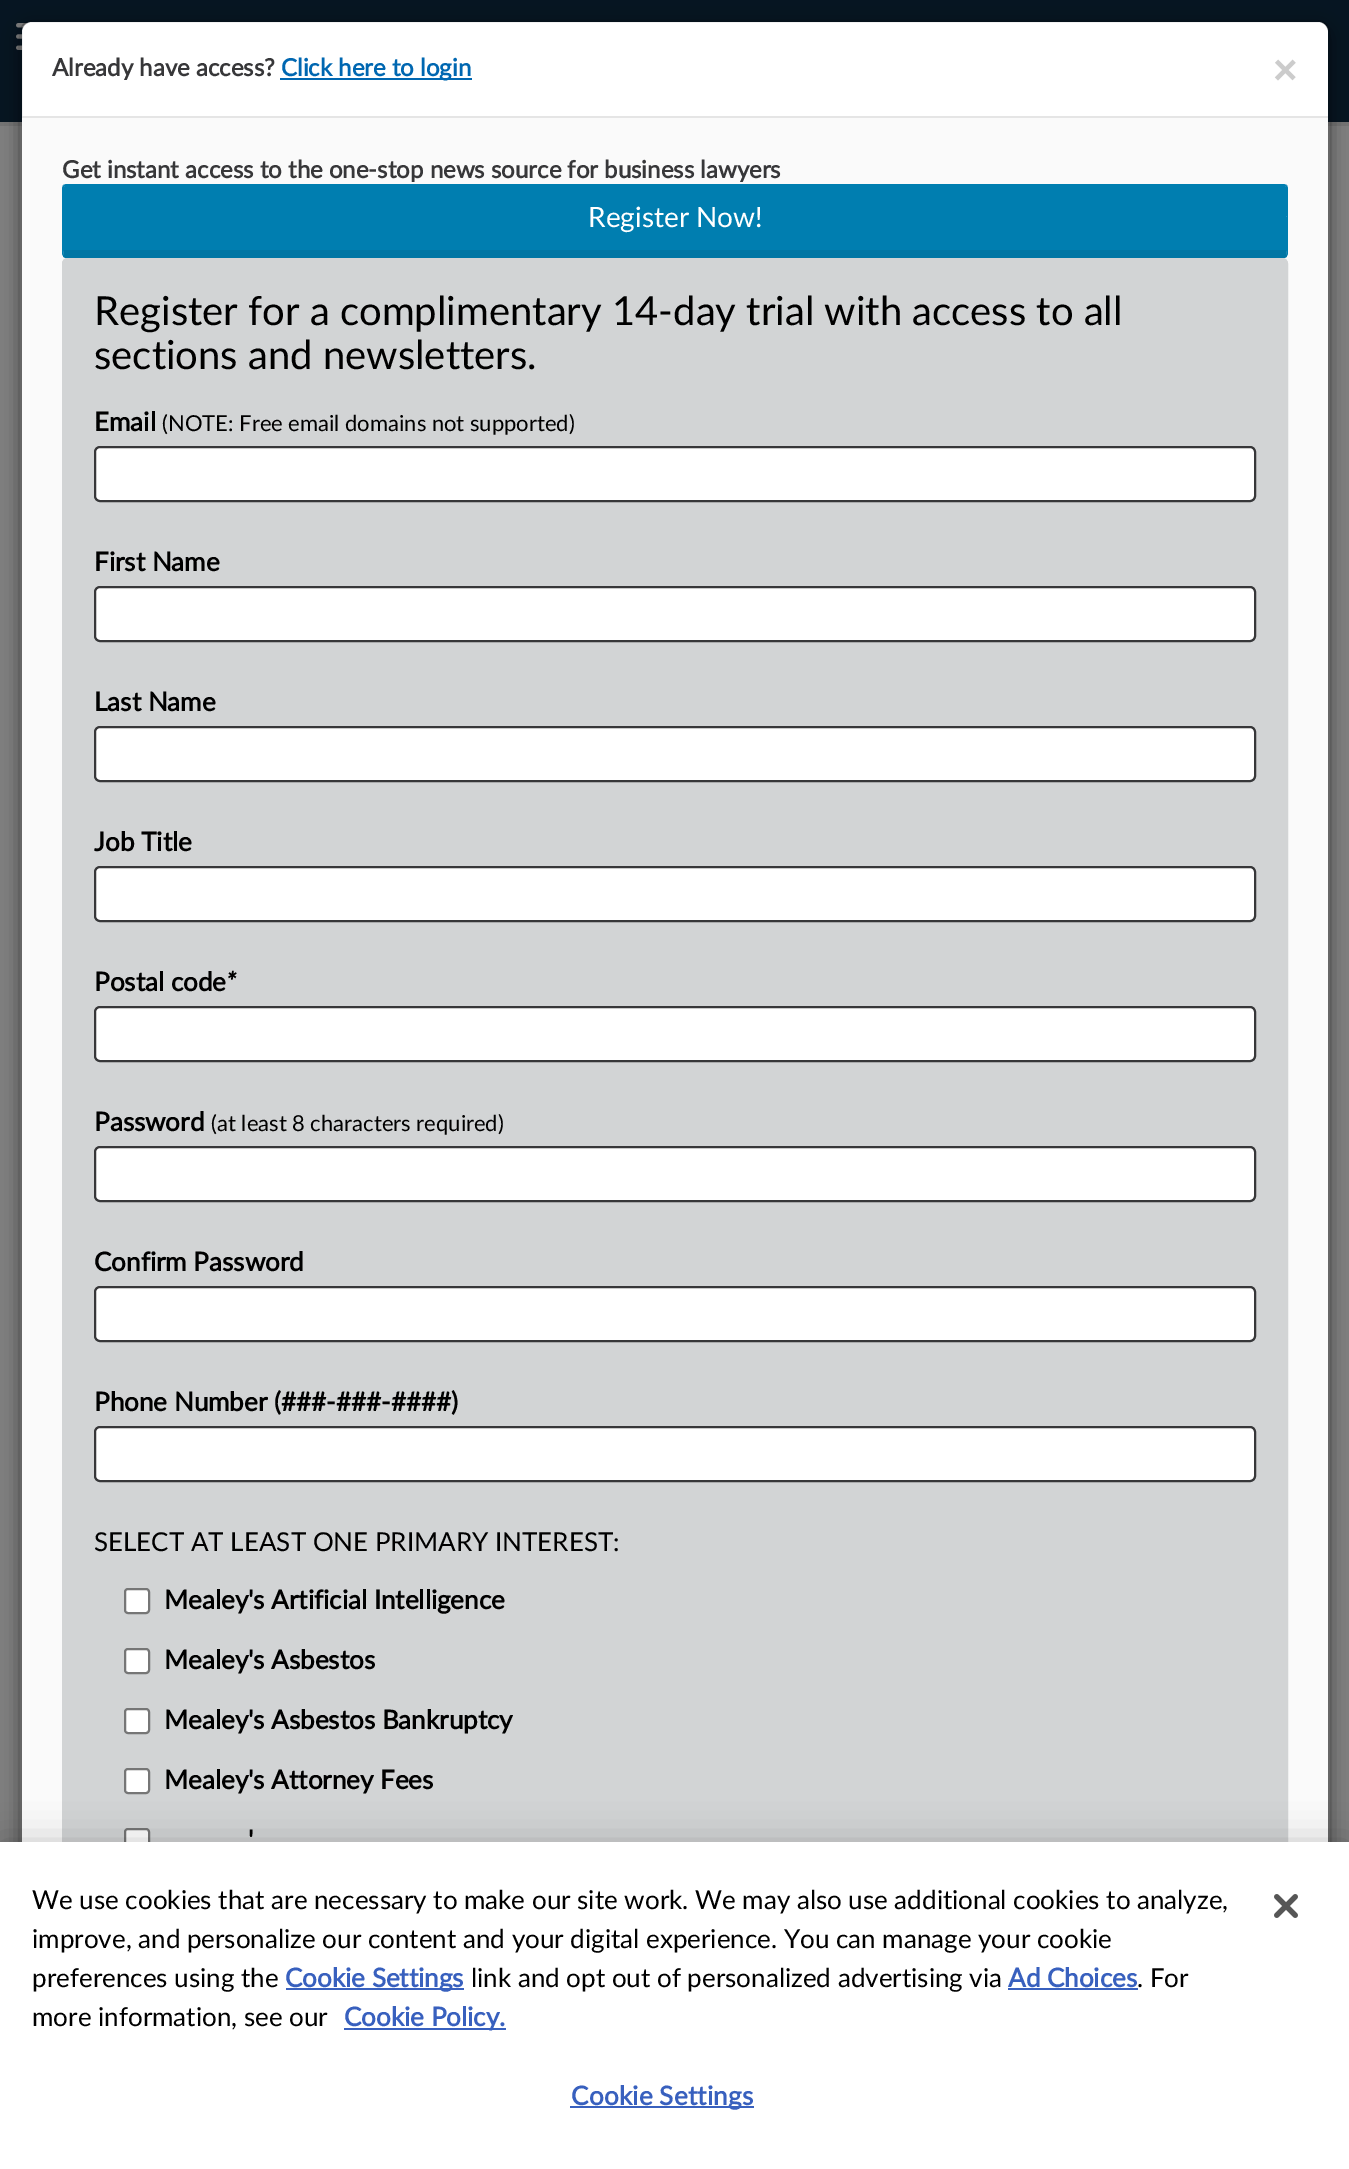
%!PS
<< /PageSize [1349 2169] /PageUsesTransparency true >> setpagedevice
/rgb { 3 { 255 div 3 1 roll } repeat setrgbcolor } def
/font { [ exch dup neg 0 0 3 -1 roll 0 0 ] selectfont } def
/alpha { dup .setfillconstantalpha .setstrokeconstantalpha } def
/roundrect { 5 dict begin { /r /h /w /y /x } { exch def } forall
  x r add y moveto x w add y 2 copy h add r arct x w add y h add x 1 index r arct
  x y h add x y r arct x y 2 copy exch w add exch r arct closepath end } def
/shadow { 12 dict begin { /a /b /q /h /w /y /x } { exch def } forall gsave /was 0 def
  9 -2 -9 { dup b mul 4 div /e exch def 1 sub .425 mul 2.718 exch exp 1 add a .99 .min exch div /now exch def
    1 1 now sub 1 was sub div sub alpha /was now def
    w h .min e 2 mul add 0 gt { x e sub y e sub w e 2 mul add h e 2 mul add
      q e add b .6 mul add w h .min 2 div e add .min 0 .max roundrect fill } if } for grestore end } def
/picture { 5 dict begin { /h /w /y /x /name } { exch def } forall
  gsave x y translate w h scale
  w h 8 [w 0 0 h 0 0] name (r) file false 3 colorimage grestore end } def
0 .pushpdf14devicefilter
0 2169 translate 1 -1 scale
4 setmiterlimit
128 128 128 rgb
0 0 1349 2169 rectfill
6 21 34 rgb
0 0 1349 122 rectfill
117 117 117 rgb
0 122 1349 4 rectfill
(img/1.rgb) 16 23 12 27 picture
gsave
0 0 moveto 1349 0 lineto 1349 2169 lineto 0 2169 lineto closepath 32 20 moveto 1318 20 lineto 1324.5 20 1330 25.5 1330 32 curveto 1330 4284 lineto 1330 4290.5 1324.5 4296 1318 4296 curveto 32 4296 lineto 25.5 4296 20 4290.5 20 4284 curveto 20 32 lineto 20 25.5 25.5 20 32 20 curveto closepath eoclip newpath
0 0 0 rgb
20 26 1310 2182 12 9 0.5 shadow
grestore
255 255 255 rgb
32 22 moveto 1318 22 lineto 1323.5 22 1328 26.5 1328 32 curveto 1328 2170 lineto 22 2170 lineto 22 32 lineto 22 26.5 26.5 22 32 22 curveto closepath fill
0.2 alpha
0 0 0 rgb
2 setlinewidth
21 21 1308 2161 11 roundrect stroke
1 alpha
[
  [22 116 1306 2 229 229 229]
  [280 78 192 2 0 103 177]
  [22 118 1306 1724 250 250 250]
] { aload pop rgb rectfill } forall
0 126 176 rgb
66 186 moveto 1284 186 lineto 1285 186 1286 187 1286 188 curveto 1286 250 lineto 64 250 lineto 64 188 lineto 64 187 65 186 66 186 curveto closepath fill
66 184 moveto 63 185 lineto 65 187 lineto 66 186 lineto 1284 186 lineto 1285 187 lineto 1287 185 lineto 1284 184 lineto closepath fill
1288 254 moveto 1288 188 lineto 1287 185 lineto 1285 187 lineto 1287 188 1286 243 1286 250 curveto 1287 256 lineto closepath fill
0 118 164 rgb
66 258 moveto 1284 258 lineto 1285 258 1287 257 1287 256 curveto 1286 250 lineto 64 250 lineto 63 256 lineto 63 257 65 258 66 258 curveto closepath fill
0 126 176 rgb
62 188 moveto 62 254 lineto 63 256 lineto 64 250 lineto 64 243 63 188 65 187 curveto 63 185 lineto closepath fill
210 212 213 rgb
68 258 moveto 1282 258 lineto 1285.5 258 1288 260.5 1288 264 curveto 1288 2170 lineto 62 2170 lineto 62 264 lineto 62 260.5 64.5 258 68 258 curveto closepath fill
63 259 1224 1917 5 roundrect stroke
255 255 255 rgb
95 447 1160 54 5 roundrect gsave fill grestore
55 55 57 rgb
stroke
255 255 255 rgb
95 587 1160 54 5 roundrect gsave fill grestore
55 55 57 rgb
stroke
255 255 255 rgb
95 727 1160 54 5 roundrect gsave fill grestore
55 55 57 rgb
stroke
255 255 255 rgb
95 867 1160 54 5 roundrect gsave fill grestore
55 55 57 rgb
stroke
255 255 255 rgb
95 1007 1160 54 5 roundrect gsave fill grestore
55 55 57 rgb
stroke
255 255 255 rgb
95 1147 1160 54 5 roundrect gsave fill grestore
55 55 57 rgb
stroke
255 255 255 rgb
95 1287 1160 54 5 roundrect gsave fill grestore
55 55 57 rgb
stroke
255 255 255 rgb
95 1427 1160 54 5 roundrect gsave fill grestore
55 55 57 rgb
stroke
255 255 255 rgb
125 1589 24 24 3 roundrect gsave fill grestore
118 118 118 rgb
stroke
255 255 255 rgb
125 1649 24 24 3 roundrect gsave fill grestore
118 118 118 rgb
stroke
255 255 255 rgb
125 1709 24 24 3 roundrect gsave fill grestore
118 118 118 rgb
stroke
255 255 255 rgb
125 1769 24 24 3 roundrect gsave fill grestore
118 118 118 rgb
stroke
255 255 255 rgb
125 1829 24 24 3 roundrect gsave fill grestore
118 118 118 rgb
stroke
0 0 0 rgb
0 1842 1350 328 0 18 0.2 shadow
[
  [0 1842 1349 327 255 255 255]
  [286 1988 178 2 56 96 190]
  [1008 1988 130 2 56 96 190]
  [344 2028 162 2 56 96 190]
  [570 2106 184 2 56 96 190]
] { aload pop rgb rectfill } forall
(img/2.rgb) 1274 1894 24 24 picture
/Lato-Bold 24 font
55 55 57 rgb
52 76 moveto (Already have access?) show
0 103 177 rgb
281 76 moveto (Click here to login) show
/LiberationSans-Bold 42 font
204 204 204 rgb
1273 84 moveto (×) show
/Lato-Bold 24 font
55 55 57 rgb
62 178 moveto (Get instant access to the one-stop news source for business lawyers) show
/Lato-Regular 28 font
255 255 255 rgb
588 227 moveto (Register Now!) show
/Lato-Regular 40 font
0 0 0 rgb
94 325 moveto (Register for a complimentary 14-day trial with access to all) show
94 369 moveto (sections and newsletters.) show
/Lato-Bold 26 font
94 431 moveto (Email) show
/Lato-Regular 22 font
162 431 moveto (\(NOTE: Free email domains not supported\)) show
/Lato-Bold 26 font
[
  [(First Name) 94 571]
  [(Last Name) 94 711]
  [(Job Title) 94 851]
  [(Postal code) 94 991]
] { aload pop moveto show } forall
/Lato-BoldItalic 26 font
226 991 moveto (*) show
/Lato-Bold 26 font
94 1131 moveto (Password) show
/Lato-Regular 22 font
211 1131 moveto (\(at least 8 characters required\)) show
/Lato-Bold 26 font
94 1271 moveto (Confirm Password) show
94 1411 moveto (Phone Number \(###-###-####\)) show
/Lato-Regular 26 font
94 1551 moveto (SELECT AT LEAST ONE PRIMARY INTEREST:) show
/Lato-Bold 26 font
[
  [(Mealey's Artificial Intelligence) 164 1609]
  [(Mealey's Asbestos) 164 1669]
  [(Mealey's Asbestos Bankruptcy) 164 1729]
  [(Mealey's Attorney Fees) 164 1789]
  [(') 248 1849]
] { aload pop moveto show } forall
/Lato-Regular 26 font
[
  [(We use cookies that are necessary to make our site work. We may also use additional cookies to analyze,) 32 1909]
  [(improve, and personalize our content and your digital experience. You can manage your cookie) 32 1948]
  [(preferences using the) 32 1987]
] { aload pop moveto show } forall
/Lato-Bold 26 font
56 96 190 rgb
285 1987 moveto (Cookie Settings) show
/Lato-Regular 26 font
0 0 0 rgb
471 1987 moveto (link and opt out of personalized advertising via) show
/Lato-Bold 26 font
56 96 190 rgb
1008 1987 moveto (Ad Choices) show
/Lato-Regular 26 font
0 0 0 rgb
1137 1987 moveto (. For) show
32 2026 moveto (more information, see our) show
/Lato-Bold 26 font
56 96 190 rgb
344 2026 moveto (Cookie Policy.) show
571 2105 moveto 0.25 0 (Cookie Settings) ashow
.poppdf14devicefilter showpage
